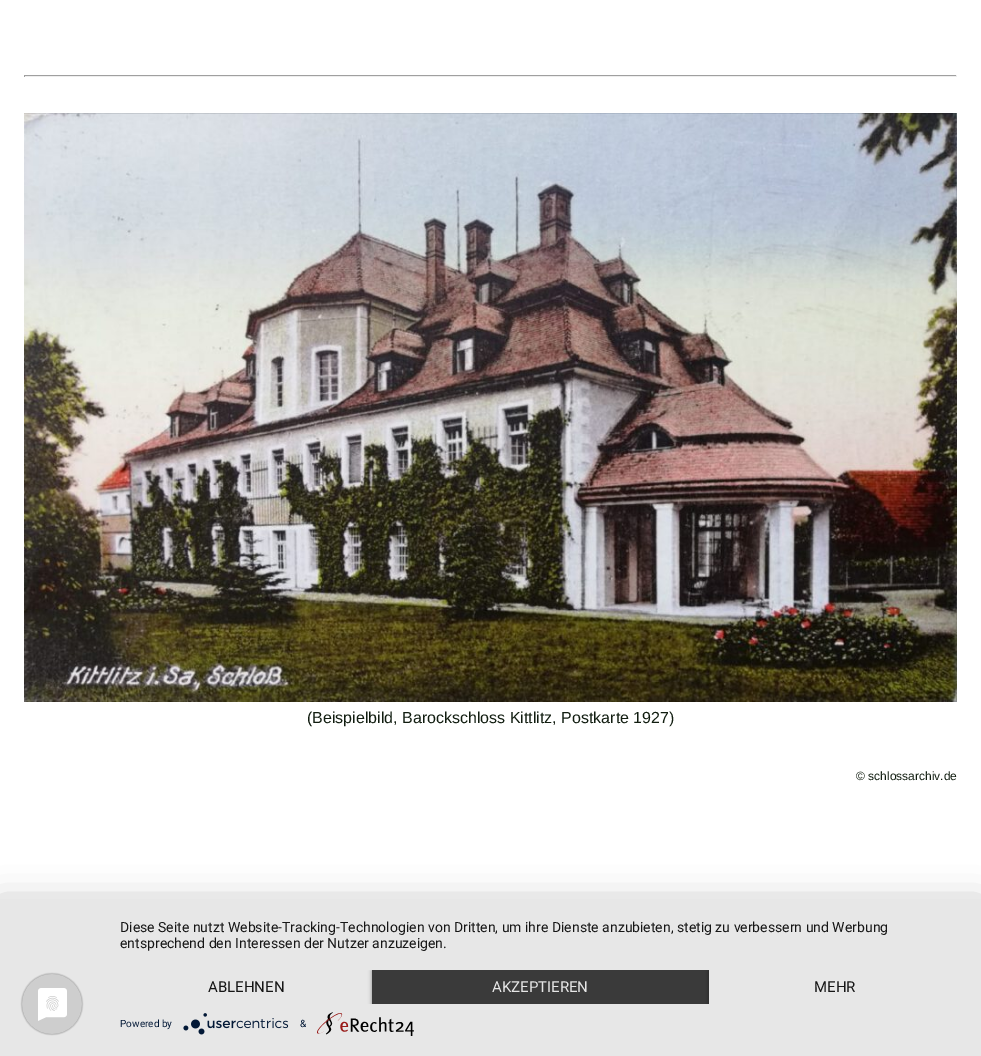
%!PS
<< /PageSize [981 1056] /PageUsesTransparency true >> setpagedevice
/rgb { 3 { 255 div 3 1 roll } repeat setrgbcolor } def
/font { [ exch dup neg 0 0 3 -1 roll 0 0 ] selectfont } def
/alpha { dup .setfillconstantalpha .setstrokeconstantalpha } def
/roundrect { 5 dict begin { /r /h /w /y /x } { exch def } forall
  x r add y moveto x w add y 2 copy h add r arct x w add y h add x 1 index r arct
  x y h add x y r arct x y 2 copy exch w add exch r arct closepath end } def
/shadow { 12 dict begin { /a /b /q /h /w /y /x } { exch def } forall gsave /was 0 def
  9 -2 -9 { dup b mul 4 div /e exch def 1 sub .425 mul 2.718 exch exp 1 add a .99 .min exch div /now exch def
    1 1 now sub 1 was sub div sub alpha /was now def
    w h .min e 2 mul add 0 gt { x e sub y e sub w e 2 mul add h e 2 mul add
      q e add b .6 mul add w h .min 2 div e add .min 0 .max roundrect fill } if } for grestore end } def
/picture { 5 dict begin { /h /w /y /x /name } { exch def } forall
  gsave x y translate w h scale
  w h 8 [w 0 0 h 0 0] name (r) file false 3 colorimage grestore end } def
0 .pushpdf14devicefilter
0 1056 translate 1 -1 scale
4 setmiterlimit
255 255 255 rgb
0 0 981 1056 rectfill
[
  [24 75 933 1 159 159 159]
  [956 75 1 2 238 238 238]
  [24 76 933 1 238 238 238]
  [24 75 1 2 159 159 159]
] { aload pop rgb rectfill } forall
(img/1.rgb) 24 113 933 589 picture
0 0 0 rgb
0 905 981 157 0 18 0.3 shadow
231 231 231 rgb
0 899 981 157 rectfill
(img/2.rgb) 20 972 64 64 picture
gsave
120 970 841 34 rectclip
0 0 0 rgb
372 971 337 34 0 2 0.4 shadow
grestore
58 58 58 rgb
372 970 337 34 rectfill
gsave
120 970 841 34 rectclip
0 0 0 rgb
709 971 252 34 0 2 0.4 shadow
grestore
231 231 231 rgb
709 970 252 34 rectfill
(img/3.rgb) 183 1013 106 22 picture
(img/4.rgb) 317 1012 97 24 picture
/LiberationSans-Regular 16 font
17 29 16 rgb
307 723 moveto (\(Beispielbild, Barockschloss Kittlitz, Postkarte 1927\)) show
/LiberationSans-Regular 12 font
856 780 moveto (© schlossarchiv.de) show
/Roboto-Regular 14 font
22 22 22 rgb
120 932 moveto (Diese Seite nutzt Website-Tracking-Technologien von Dritten, um ihre Dienste anzubieten, stetig zu verbessern und Werbung) show
120 948 moveto (entsprechend den Interessen der Nutzer anzuzeigen.) show
/Roboto-Regular 15 font
208 992 moveto (ABLEHNEN) show
230 230 230 rgb
492 992 moveto (AKZEPTIEREN) show
22 22 22 rgb
814 992 moveto (MEHR) show
/Roboto-Regular 10 font
2 24 54 rgb
120 1027 moveto (Powered by) show
300 1027 moveto (&) show
.poppdf14devicefilter showpage
